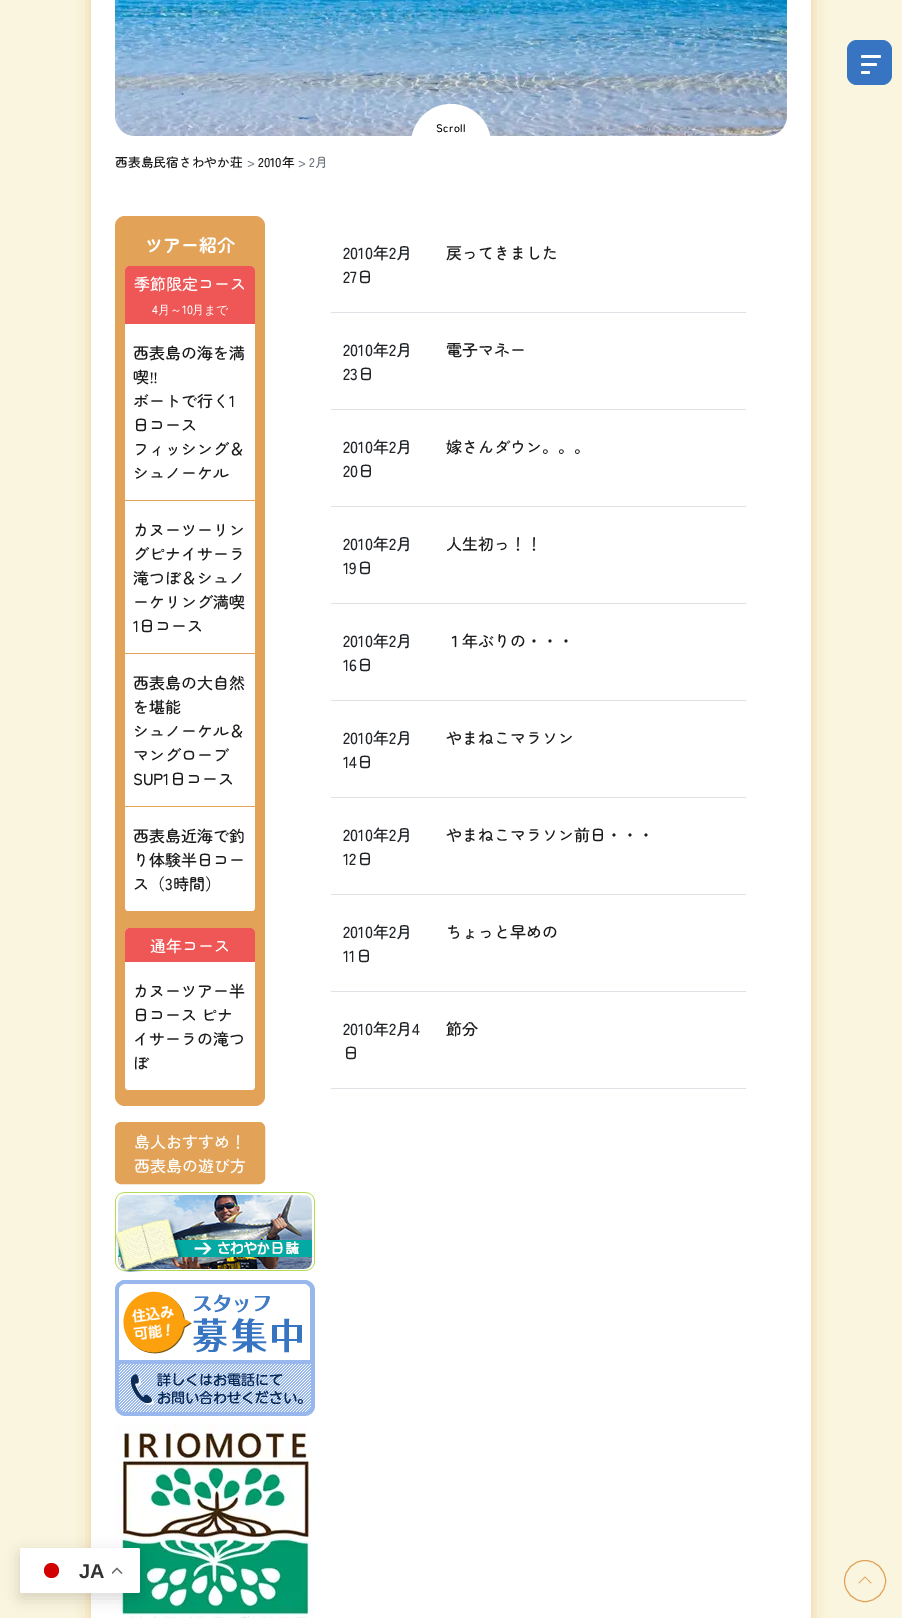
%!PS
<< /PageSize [902 1618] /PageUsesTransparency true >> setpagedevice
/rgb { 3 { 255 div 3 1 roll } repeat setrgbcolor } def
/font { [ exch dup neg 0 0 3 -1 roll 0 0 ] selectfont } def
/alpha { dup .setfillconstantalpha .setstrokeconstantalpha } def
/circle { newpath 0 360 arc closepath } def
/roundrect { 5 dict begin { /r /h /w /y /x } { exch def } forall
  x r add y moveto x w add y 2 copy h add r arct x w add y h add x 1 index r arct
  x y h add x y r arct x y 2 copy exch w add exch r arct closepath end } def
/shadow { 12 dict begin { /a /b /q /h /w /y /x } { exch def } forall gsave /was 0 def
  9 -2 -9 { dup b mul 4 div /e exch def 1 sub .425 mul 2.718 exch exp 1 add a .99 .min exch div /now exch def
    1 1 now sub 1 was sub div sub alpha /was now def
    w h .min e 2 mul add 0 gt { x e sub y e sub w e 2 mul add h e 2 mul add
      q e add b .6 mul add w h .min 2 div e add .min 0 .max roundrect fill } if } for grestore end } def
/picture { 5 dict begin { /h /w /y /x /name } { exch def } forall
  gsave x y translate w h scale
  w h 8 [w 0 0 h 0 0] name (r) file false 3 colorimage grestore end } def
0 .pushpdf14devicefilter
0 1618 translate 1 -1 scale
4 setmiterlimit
249 245 222 rgb
0 0 902 1618 rectfill
226 163 90 rgb
91 -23 720 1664 0 7.5 0.5 shadow
255 255 255 rgb
91 0 720 1618 rectfill
55 117 194 rgb
847 40 45 45 10 roundrect fill
255 255 255 rgb
861 55 20 3 1.5 roundrect fill
861 63 16 3 1.5 roundrect fill
861 71 9 3 1.5 roundrect fill
(img/1.rgb) 115 0 672 136 picture
451 144 40 circle fill
226 163 89 rgb
115 216 150 890 10 roundrect fill
255 255 255 rgb
125 266 130 646 5 roundrect fill
239 86 86 rgb
130 266 moveto 250 266 lineto 253 266 255 268 255 271 curveto 255 324 lineto 125 324 lineto 125 271 lineto 125 268 127 266 130 266 curveto closepath fill
[
  [125 500 130 1 226 163 89]
  [125 653 130 1 226 163 89]
  [125 806 130 1 226 163 89]
  [125 911 130 1 226 163 89]
] { aload pop rgb rectfill } forall
255 255 255 rgb
125 928 130 163 5 roundrect fill
239 86 86 rgb
130 928 moveto 250 928 lineto 253 928 255 930 255 933 curveto 255 962 lineto 125 962 lineto 125 933 lineto 125 930 127 928 130 928 curveto closepath fill
226 163 89 rgb
125 1090 130 1 rectfill
115.5 1122.5 149 61 5.5 roundrect gsave fill grestore
stroke
(img/2.rgb) 115 1192 200 80 picture
(img/3.rgb) 115 1280 200 136 picture
(img/4.rgb) 115 1424 200 194 picture
[
  [331 312 415 1 222 226 230]
  [331 409 415 1 222 226 230]
  [331 506 415 1 222 226 230]
  [331 603 415 1 222 226 230]
  [331 700 415 1 222 226 230]
  [331 797 415 1 222 226 230]
  [331 894 415 1 222 226 230]
  [331 991 415 1 222 226 230]
  [331 1088 415 1 222 226 230]
] { aload pop rgb rectfill } forall
226 163 89 rgb
865 1581 20.5 circle stroke
(img/5.rgb) 858 1576 14 8 picture
0 0 0 rgb
20 1553 120 45 2 7.5 0.15 shadow
255 255 255 rgb
20 1548 120 45 2 roundrect fill
211 0 0 rgb
51.5 1570.5 7.5 circle fill
(img/6.rgb) 112 1567 11 7 picture
/ZenMaruGothic-Medium 11 font
0 0 0 rgb
436 132 moveto 0.5 0 (Scroll) ashow
/ZenMaruGothic-Medium 12.75 font
27 27 27 rgb
115 167 moveto (西表島民宿さわやか荘) show
108 117 125 rgb
247 167 moveto (>) show
27 27 27 rgb
258 167 moveto (2010年) show
108 117 125 rgb
298 167 moveto (> 2月) show
/ZenMaruGothic-Bold 18 font
255 255 255 rgb
145 252 moveto (ツアー紹介) show
/ZenMaruGothic-Medium 16 font
134 290 moveto (季節限定コース) show
/ZenMaruGothic-Medium 12 font
152 314 moveto (4) show
/WenQuanYiZenHei-Medium 12 font
158 314 moveto (月～) show
/ZenMaruGothic-Medium 12 font
182 314 moveto (10) show
/WenQuanYiZenHei-Medium 12 font
192 314 moveto (月まで) show
/ZenMaruGothic-Medium 16 font
27 27 27 rgb
133 359 moveto (西表島の海を満) show
133 383 moveto (喫) show
/LiberationSerif-Regular 16 font
149 383 moveto (‼) show
/ZenMaruGothic-Medium 16 font
[
  [(ボートで行く1) 133 407]
  [(日コース) 133 431]
  [(フィッシング＆) 133 455]
  [(シュノーケル) 133 479]
  [(カヌーツーリン) 133 536]
  [(グピナイサーラ) 133 560]
  [(滝つぼ＆シュノ) 133 584]
  [(ーケリング満喫) 133 608]
  [(1日コース) 133 632]
  [(西表島の大自然) 133 689]
  [(を堪能) 133 713]
  [(シュノーケル＆) 133 737]
  [(マングローブ) 133 761]
  [(SUP1日コース) 133 785]
  [(西表島近海で釣) 133 842]
  [(り体験半日コー) 133 866]
  [(ス（3時間）) 133 890]
] { aload pop moveto show } forall
255 255 255 rgb
150 952 moveto (通年コース) show
27 27 27 rgb
[
  [(カヌーツアー半) 133 997]
  [(日コース ピナ) 133 1021]
  [(イサーラの滝つ) 133 1045]
  [(ぼ) 133 1069]
] { aload pop moveto show } forall
255 255 255 rgb
134 1148 moveto (島人おすすめ！) show
134 1172 moveto (西表島の遊び方) show
33 37 41 rgb
343 259 moveto (2010年2月) show
343 283 moveto (27日) show
27 27 27 rgb
446 259 moveto (戻ってきました) show
33 37 41 rgb
343 356 moveto (2010年2月) show
343 380 moveto (23日) show
27 27 27 rgb
446 356 moveto (電子マネー) show
33 37 41 rgb
343 453 moveto (2010年2月) show
343 477 moveto (20日) show
27 27 27 rgb
446 453 moveto (嫁さんダウン。。。) show
33 37 41 rgb
343 550 moveto (2010年2月) show
343 574 moveto (19日) show
27 27 27 rgb
446 550 moveto (人生初っ！！) show
33 37 41 rgb
343 647 moveto (2010年2月) show
343 671 moveto (16日) show
27 27 27 rgb
446 647 moveto (１年ぶりの・・・) show
33 37 41 rgb
343 744 moveto (2010年2月) show
343 768 moveto (14日) show
27 27 27 rgb
446 744 moveto (やまねこマラソン) show
33 37 41 rgb
343 841 moveto (2010年2月) show
343 865 moveto (12日) show
27 27 27 rgb
446 841 moveto (やまねこマラソン前日・・・) show
33 37 41 rgb
343 938 moveto (2010年2月) show
343 962 moveto (11日) show
27 27 27 rgb
446 938 moveto (ちょっと早めの) show
33 37 41 rgb
343 1035 moveto (2010年2月4) show
343 1059 moveto (日) show
27 27 27 rgb
446 1035 moveto (節分) show
/LiberationSans-Bold 20 font
51 51 51 rgb
79 1578 moveto (JA) show
.poppdf14devicefilter showpage
